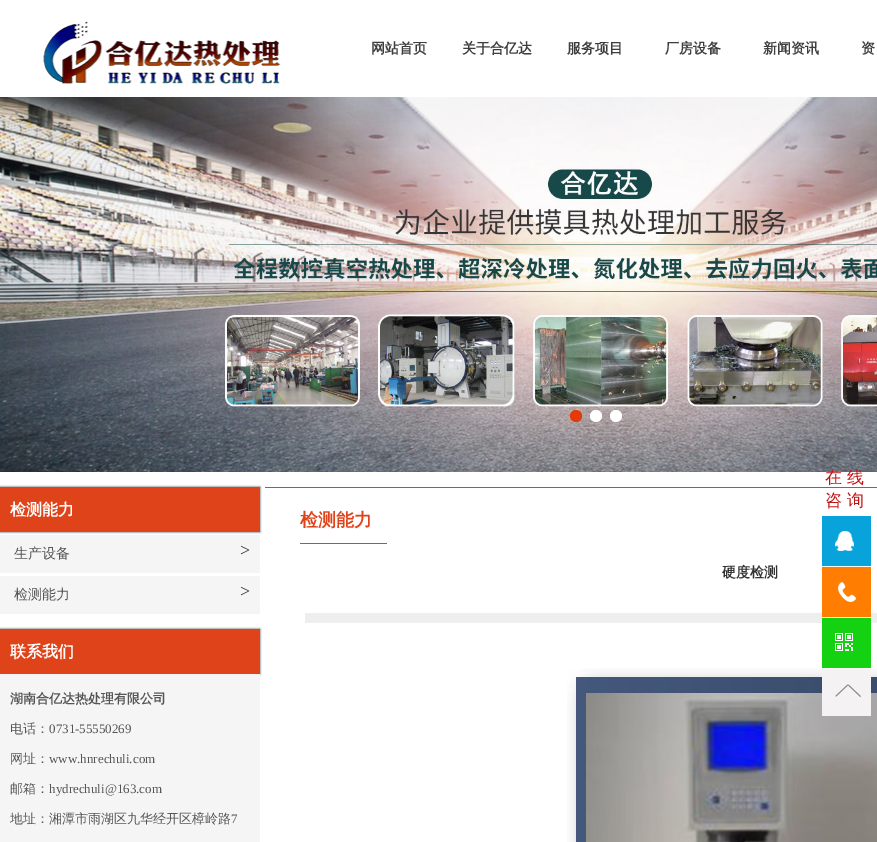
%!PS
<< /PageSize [877 842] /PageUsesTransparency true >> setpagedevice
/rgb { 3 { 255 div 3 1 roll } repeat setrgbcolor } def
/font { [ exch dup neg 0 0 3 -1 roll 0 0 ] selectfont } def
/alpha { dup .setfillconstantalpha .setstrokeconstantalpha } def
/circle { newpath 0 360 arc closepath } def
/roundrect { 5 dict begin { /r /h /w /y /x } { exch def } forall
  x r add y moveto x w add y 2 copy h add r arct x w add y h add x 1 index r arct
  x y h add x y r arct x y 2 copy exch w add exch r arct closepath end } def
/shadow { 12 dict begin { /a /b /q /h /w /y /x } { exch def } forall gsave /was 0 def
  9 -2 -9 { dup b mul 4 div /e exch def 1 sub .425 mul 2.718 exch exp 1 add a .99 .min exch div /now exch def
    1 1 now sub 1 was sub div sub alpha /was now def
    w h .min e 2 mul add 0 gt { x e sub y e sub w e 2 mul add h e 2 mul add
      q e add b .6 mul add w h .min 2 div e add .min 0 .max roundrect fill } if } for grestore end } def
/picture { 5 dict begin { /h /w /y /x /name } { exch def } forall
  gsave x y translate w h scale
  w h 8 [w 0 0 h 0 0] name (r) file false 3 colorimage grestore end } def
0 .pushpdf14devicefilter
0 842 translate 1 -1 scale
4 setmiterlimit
255 255 255 rgb
0 0 877 842 rectfill
(img/1.rgb) 43 21 237 63 picture
(img/2.rgb) 0 97 877 375 picture
227 58 6 rgb
576 416 6 circle fill
255 255 255 rgb
596 416 6 circle fill
616 416 6 circle fill
238 238 238 rgb
305 613 572 10 rectfill
(img/4.rgb) 567 668 310 174 picture
(img/3.rgb) 822 516 49 200 picture
0 0 0 rgb
0 487 260 45 0 1 0.8 shadow
[
  [0 487 260 45 223 67 26]
  [0 535 260 38 246 245 245]
  [0 576 260 38 246 245 245]
] { aload pop rgb rectfill } forall
0 0 0 rgb
0 629 260 45 0 1 0.8 shadow
[
  [0 629 260 45 223 67 26]
  [0 674 260 168 246 245 245]
  [265 487 612 1 223 67 26]
  [300 543 87 1 223 67 26]
] { aload pop rgb rectfill } forall
/WenQuanYiZenHei-Bold 14 font
61 61 61 rgb
[
  [(网站首页) 371 53]
  [(关于合亿达) 462 53]
  [(服务项目) 567 53]
  [(厂房设备) 665 53]
  [(新闻资讯) 763 53]
  [(资) 861 53]
] { aload pop moveto show } forall
/WenQuanYiZenHei-Medium 17 font
191 20 22 rgb
825 483 moveto 5 0 (在线) ashow
825 506 moveto 5 0 (咨询) ashow
/WenQuanYiZenHei-Bold 16 font
255 255 255 rgb
10 515 moveto (检测能力) show
/WenQuanYiZenHei-Medium 14 font
85 85 85 rgb
14 558 moveto (生产设备) show
/LiberationSerif-Regular 18 font
51 51 51 rgb
240 556 moveto (>) show
/WenQuanYiZenHei-Medium 14 font
85 85 85 rgb
14 599 moveto (检测能力) show
/LiberationSerif-Regular 18 font
51 51 51 rgb
240 597 moveto (>) show
/WenQuanYiZenHei-Bold 16 font
255 255 255 rgb
10 657 moveto (联系我们) show
/WenQuanYiZenHei-Bold 13 font
85 85 85 rgb
10 703 moveto (湖南合亿达热处理有限公司) show
/WenQuanYiZenHei-Medium 13 font
10 733 moveto (电话：) show
/LiberationSerif-Regular 13 font
49 733 moveto (0731-55550269) show
/WenQuanYiZenHei-Medium 13 font
10 763 moveto (网址：) show
/LiberationSerif-Regular 13 font
49 763 moveto (www.hnrechuli.com) show
/WenQuanYiZenHei-Medium 13 font
10 793 moveto (邮箱：) show
/LiberationSerif-Regular 13 font
49 793 moveto (hydrechuli@163.com) show
/WenQuanYiZenHei-Medium 13 font
10 823 moveto (地址：湘潭市雨湖区九华经开区樟岭路) show
/LiberationSerif-Regular 13 font
231 823 moveto (7) show
/WenQuanYiZenHei-Bold 18 font
223 67 26 rgb
300 526 moveto (检测能力) show
/WenQuanYiZenHei-Bold 14 font
51 51 51 rgb
722 577 moveto (硬度检测) show
.poppdf14devicefilter showpage
